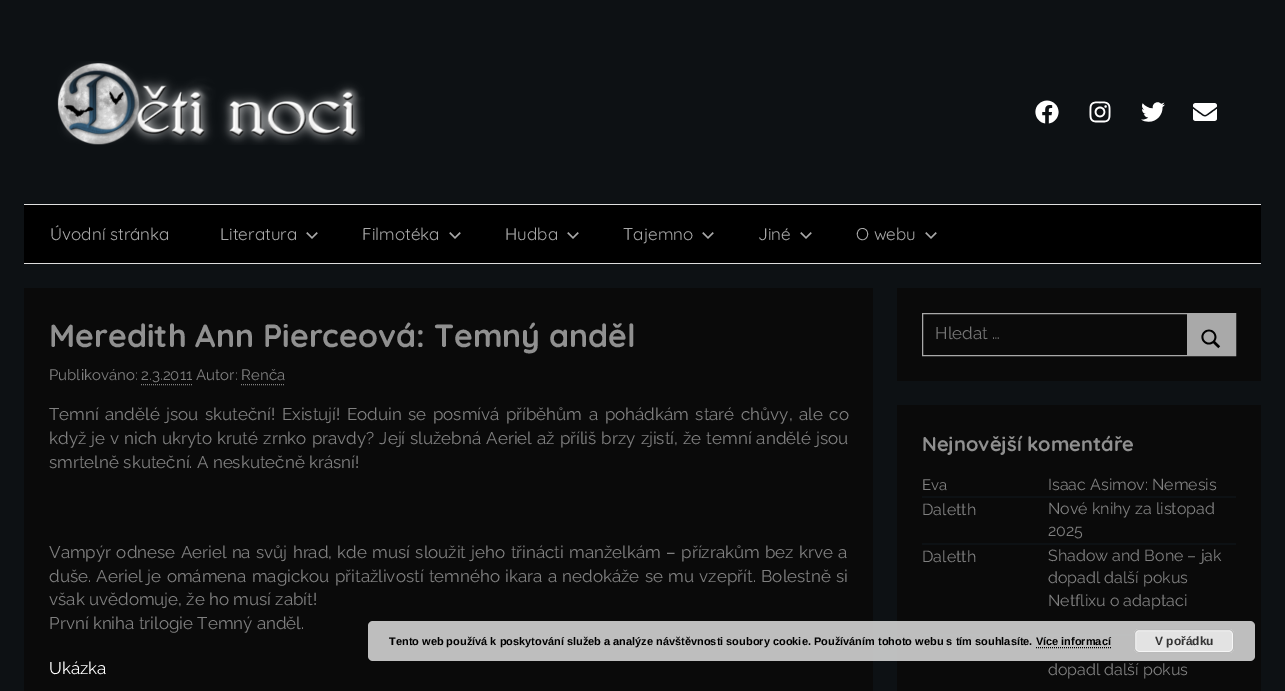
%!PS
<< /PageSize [1285 691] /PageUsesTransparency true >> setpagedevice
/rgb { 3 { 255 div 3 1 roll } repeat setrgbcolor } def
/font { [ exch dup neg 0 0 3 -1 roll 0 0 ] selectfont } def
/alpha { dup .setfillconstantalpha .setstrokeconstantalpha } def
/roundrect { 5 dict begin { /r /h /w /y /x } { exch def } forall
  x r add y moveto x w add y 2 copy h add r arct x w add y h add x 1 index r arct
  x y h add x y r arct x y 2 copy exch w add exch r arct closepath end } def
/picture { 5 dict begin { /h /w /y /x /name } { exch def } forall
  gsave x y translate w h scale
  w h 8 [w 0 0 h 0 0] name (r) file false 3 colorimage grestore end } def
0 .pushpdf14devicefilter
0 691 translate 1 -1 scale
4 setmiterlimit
13 17 20 rgb
0 0 1285 691 rectfill
0 0 0 rgb
24 205 1237 58 rectfill
(img/1.rgb) 57 61 308 84 picture
(img/2.rgb) 1035 100 24 24 picture
(img/3.rgb) 1089 101 22 22 picture
(img/4.rgb) 1141 102 24 20 picture
(img/5.rgb) 1193 103 24 18 picture
224 224 224 rgb
24 204 1237 1 rectfill
221 221 221 rgb
24 263 1237 1 rectfill
(img/6.rgb) 306 232 12 7 picture
(img/6.rgb) 449 232 12 7 picture
(img/6.rgb) 567 232 12 7 picture
(img/6.rgb) 702 232 12 7 picture
(img/6.rgb) 800 232 12 7 picture
(img/6.rgb) 925 232 12 7 picture
10 10 10 rgb
24 288 849 403 rectfill
128 128 128 rgb
[1 1] 0 setdash
141 384.5 moveto 193 384.5 lineto stroke
241 384.5 moveto 285 384.5 lineto stroke
10 10 10 rgb
897 288 364 93 rectfill
169 169 169 rgb
[] 0 setdash
922.5 313.5 313 42 rectstroke
1187 314 48 41 rectfill
(img/7.rgb) 1201 329 20 20 picture
[
  [897 405 364 286 10 10 10]
  [922 496 314 2 13 17 20]
  [922 543 314 2 13 17 20]
  [922 634 314 2 13 17 20]
] { aload pop rgb rectfill } forall
0.85 alpha
221 221 221 rgb
368 621 887 40 5 roundrect fill
1 alpha
227 227 227 rgb
1134 629 100 24 5 roundrect fill
246 246 246 rgb
1135.5 630.5 97 21 3.5 roundrect stroke
187 187 187 rgb
1134.5 629.5 99 23 4.5 roundrect stroke
0 0 0 rgb
[1 1] 0 setdash
1036 647.5 moveto 1111 647.5 lineto stroke
/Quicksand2-Light 17 font
169 169 169 rgb
[
  [(Úvodní stránka) 50 240]
  [(Literatura) 220 240]
  [(Filmotéka) 362 240]
  [(Hudba) 505 240]
  [(Tajemno) 623 240]
  [(Jiné) 758 240]
  [(O webu) 856 240]
] { aload pop moveto show } forall
/Quicksand-Light 32 font
144 144 144 rgb
49 347 moveto (Meredith Ann Pierceová: Temný anděl) show
/Raleway-Thin 15 font
128 128 128 rgb
49 380 moveto (Publikováno: 2.3.2011 Autor: Renča) show
/Raleway-Thin 17 font
49 420 moveto 2.25 0 32 (Temní andělé jsou skuteční! Existují! Eoduin se posmívá příběhům a pohádkám staré chůvy, ale co) widthshow
49 444 moveto 0.75 0 32 (když je v nich ukryto kruté zrnko pravdy? Její služebná Aeriel až příliš brzy zjistí, že temní andělé jsou) widthshow
49 468 moveto (smrtelně skuteční. A neskutečně krásní!) show
49 558 moveto 1 0 32 (Vampýr odnese Aeriel na svůj hrad, kde musí sloužit jeho třinácti manželkám – přízrakům bez krve a) widthshow
49 582 moveto 1 0 32 (duše. Aeriel je omámena magickou přitažlivostí temného ikara a nedokáže se mu vzepřít. Bolestně si) widthshow
49 605 moveto (však uvědomuje, že ho musí zabít!) show
49 629 moveto (První kniha trilogie Temný anděl.) show
255 255 255 rgb
49 674 moveto (Ukázka) show
117 117 117 rgb
935 339 moveto (Hledat …) show
/Quicksand-Light 20 font
144 144 144 rgb
922 451 moveto (Nejnovější komentáře) show
/Raleway-Thin 15 font
128 128 128 rgb
922 490 moveto (Eva) show
/Raleway-Thin 16 font
[
  [(Isaac Asimov: Nemesis) 1048 490]
  [(Daletth) 922 515]
  [(Nové knihy za listopad) 1048 514]
  [(2025) 1048 536]
  [(Daletth) 922 562]
  [(Shadow and Bone – jak) 1048 561]
  [(dopadl další pokus) 1048 583]
  [(Netflixu o adaptaci) 1048 606]
  [(dopadl další pokus) 1048 675]
] { aload pop moveto show } forall
/LiberationSans-Bold 11 font
0 0 0 rgb
389 645 moveto (Tento web používá k poskytování služeb a analýze návštěvnosti soubory cookie. Používáním tohoto webu s tím souhlasíte. Více informací) show
/LiberationSans-Bold 12 font
51 51 51 rgb
1155 645 moveto (V pořádku) show
.poppdf14devicefilter showpage
